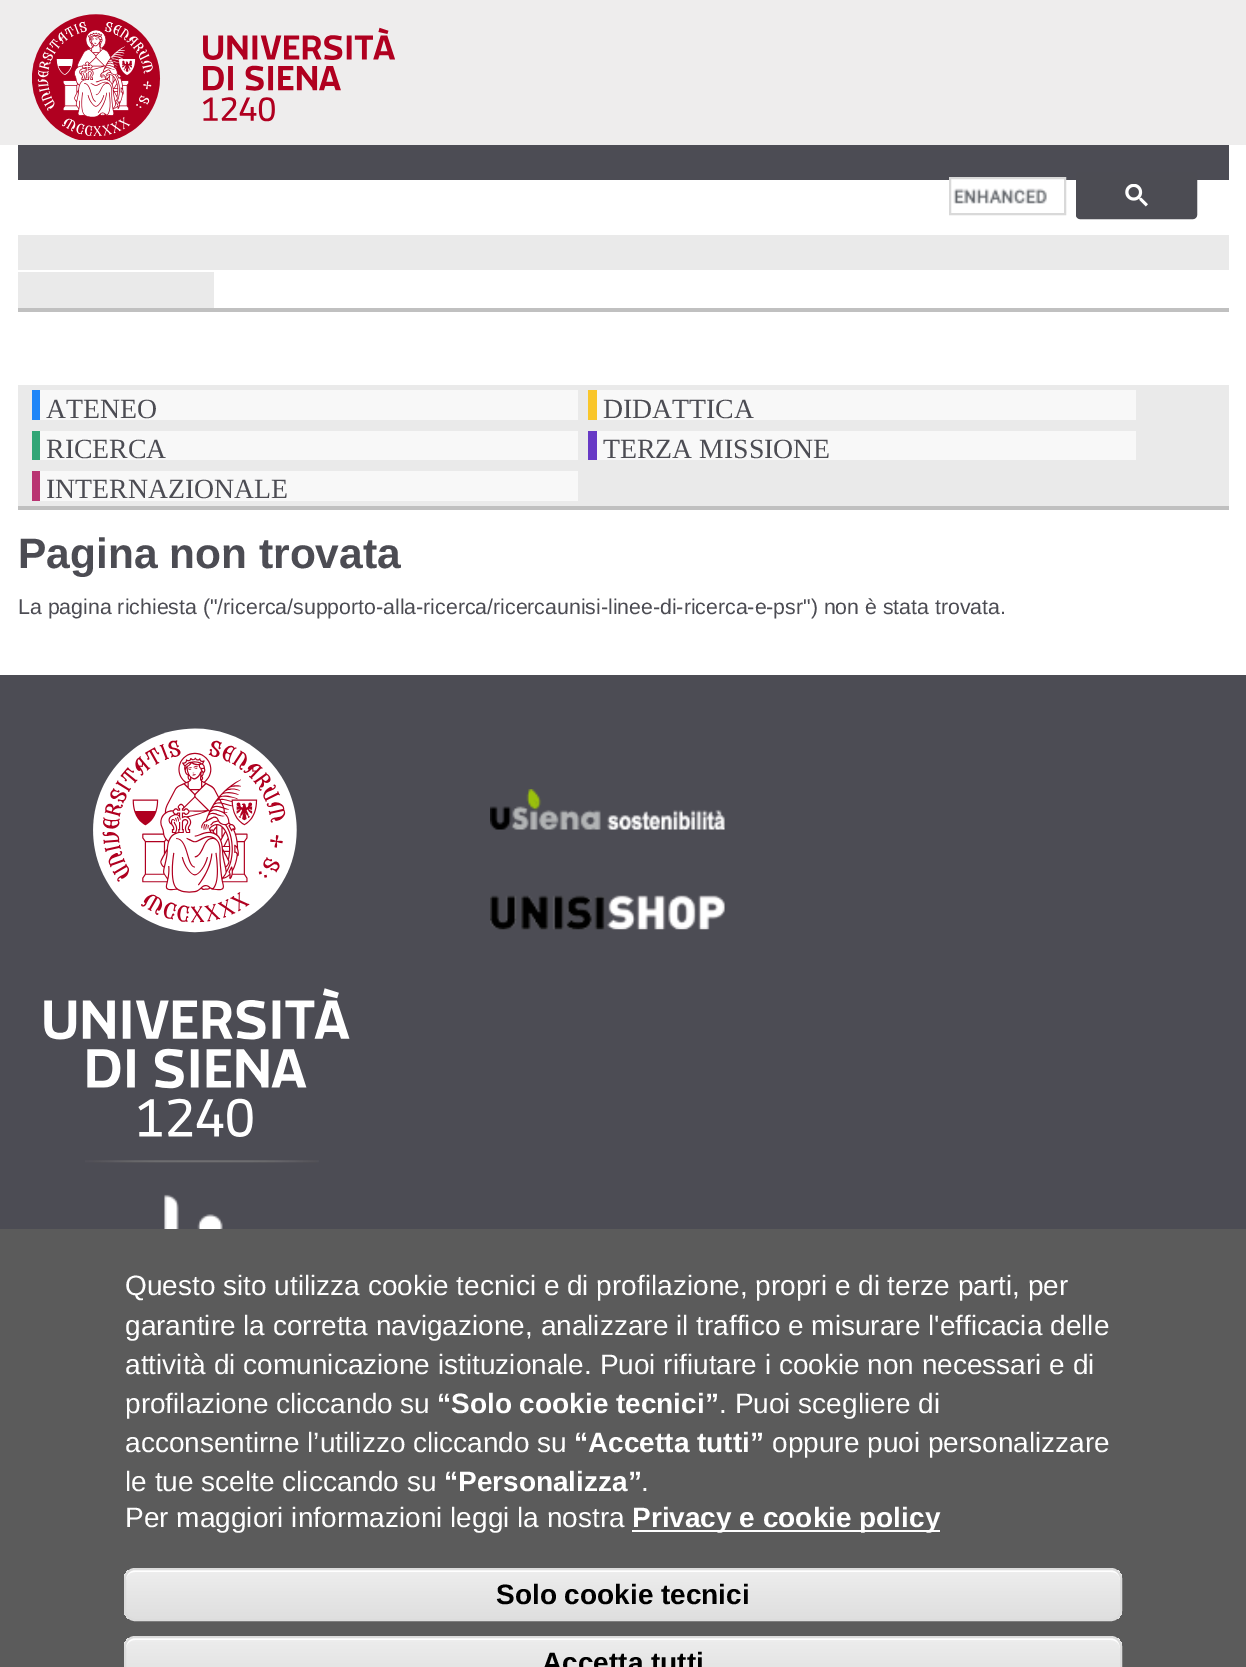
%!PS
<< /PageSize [1246 1667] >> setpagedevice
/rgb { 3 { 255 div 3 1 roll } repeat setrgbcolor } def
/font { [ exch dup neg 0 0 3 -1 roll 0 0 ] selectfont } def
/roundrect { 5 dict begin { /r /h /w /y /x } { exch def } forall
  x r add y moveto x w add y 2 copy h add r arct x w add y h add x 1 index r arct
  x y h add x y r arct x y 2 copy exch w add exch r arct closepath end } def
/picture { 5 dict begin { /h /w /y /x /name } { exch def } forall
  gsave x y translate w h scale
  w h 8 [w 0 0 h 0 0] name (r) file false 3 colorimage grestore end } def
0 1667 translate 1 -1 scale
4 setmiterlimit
238 237 237 rgb
0 0 1246 1667 rectfill
(img/1.rgb) 32 14 363 126 picture
[
  [0 145 1246 530 255 255 255]
  [18 145 1211 35 76 76 84]
  [951 179 113 1 255 255 255]
] { aload pop rgb rectfill } forall
217 217 217 rgb
2 setlinewidth
950 178 115 36 rectstroke
(img/2.rgb) 953 188 94 16 picture
76 76 83 rgb
1077 173 119 45 3 roundrect gsave fill grestore
stroke
(img/3.rgb) 1125 184 23 23 picture
[
  [18 308 1211 4 192 192 192]
  [18 235 1211 35 234 234 234]
  [18 272 196 36 234 234 234]
  [18 385 1211 121 234 234 234]
  [18 506 1211 4 192 192 192]
  [40 390 538 30 248 248 248]
  [32 390 8 30 30 133 248]
  [597 390 539 30 248 248 248]
  [588 390 9 30 249 198 43]
  [40 431 538 29 248 248 248]
  [32 431 8 29 49 166 118]
  [597 431 539 29 248 248 248]
  [588 431 9 29 103 57 197]
  [40 471 538 30 248 248 248]
  [32 471 8 30 185 52 114]
  [0 675 1246 554 76 76 84]
] { aload pop rgb rectfill } forall
(img/4.rgb) 44 728 306 409 picture
(img/5.rgb) 85 1160 234 3 picture
(img/6.rgb) 164 1194 59 35 picture
(img/7.rgb) 490 789 235 41 picture
(img/8.rgb) 490 895 235 35 picture
91 91 91 rgb
0 1229 1246 438 rectfill
255 255 255 rgb
632 1530 308 2 rectfill
gsave
124 1568 998 53 11 roundrect clip newpath
gsave 124 1570 moveto 1122 1570 lineto 1122 1619 lineto 124 1619 lineto closepath clip newpath
<< /ShadingType 2 /ColorSpace /DeviceRGB /Coords [623 1570 623 1619] /Extend [true true] /Function << /FunctionType 3 /Domain [0 1] /Functions [<< /FunctionType 2 /Domain [0 1] /C0 [0.929 0.929 0.929] /C1 [0.929 0.929 0.929] /N 1 >> << /FunctionType 2 /Domain [0 1] /C0 [0.929 0.929 0.929] /C1 [0.875 0.875 0.875] /N 1 >>] /Bounds [0.05] /Encode [0 1 0 1] >> >> shfill grestore
grestore
135 1572 moveto 1111 1572 lineto 1116 1572 1120 1575 1120 1580 curveto 1120 1579 lineto 1120 1574 1116 1570 1111 1570 curveto 135 1570 lineto 130 1570 126 1574 126 1579 curveto 126 1580 lineto 126 1575 130 1572 135 1572 curveto closepath fill
220 220 220 rgb
125 1569 996 51 10 roundrect stroke
gsave
124 1636 998 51 11 roundrect clip newpath
gsave 124 1638 moveto 1122 1638 lineto 1122 1667 lineto 124 1667 lineto closepath clip newpath
<< /ShadingType 2 /ColorSpace /DeviceRGB /Coords [623 1638 623 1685] /Extend [true true] /Function << /FunctionType 3 /Domain [0 1] /Functions [<< /FunctionType 2 /Domain [0 1] /C0 [0.929 0.929 0.929] /C1 [0.929 0.929 0.929] /N 1 >> << /FunctionType 2 /Domain [0 1] /C0 [0.929 0.929 0.929] /C1 [0.875 0.875 0.875] /N 1 >>] /Bounds [0.05] /Encode [0 1 0 1] >> >> shfill grestore
grestore
255 255 255 rgb
135 1640 moveto 1111 1640 lineto 1116 1640 1120 1644 1120 1648 curveto 1120 1647 lineto 1120 1642 1116 1638 1111 1638 curveto 135 1638 lineto 130 1638 126 1642 126 1647 curveto 126 1648 lineto 126 1644 130 1640 135 1640 curveto closepath fill
220 220 220 rgb
125 1637 996 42 10 roundrect stroke
/LiberationSerif-Regular 27.75 font
76 76 83 rgb
[
  [(ATENEO) 46 418]
  [(DIDATTICA) 603 418]
  [(RICERCA) 46 458]
  [(TERZA MISSIONE) 603 458]
  [(INTERNAZIONALE) 46 498]
] { aload pop moveto show } forall
/LiberationSans-Bold 42.5 font
18 568 moveto (Pagina non trovata) show
/LiberationSans-Regular 21.3 font
18 614 moveto (La pagina richiesta \("/ricerca/supporto-alla-ricerca/ricercaunisi-linee-di-ricerca-e-psr"\) non è stata trovata.) show
/LiberationSans-Regular 28 font
255 255 255 rgb
[
  [(Questo sito utilizza cookie tecnici e di profilazione, propri e di terze parti, per) 125 1295]
  [(garantire la corretta navigazione, analizzare il traffico e misurare l'efficacia delle) 125 1335]
  [(attività di comunicazione istituzionale. Puoi rifiutare i cookie non necessari e di) 125 1374]
  [(profilazione cliccando su) 125 1413]
] { aload pop moveto show } forall
/LiberationSans-Bold 28 font
437 1413 moveto (“Solo cookie tecnici”) show
/LiberationSans-Regular 28 font
719 1413 moveto (. Puoi scegliere di) show
125 1452 moveto (acconsentirne l’utilizzo cliccando su) show
/LiberationSans-Bold 28 font
574 1452 moveto (“Accetta tutti”) show
/LiberationSans-Regular 28 font
772 1452 moveto (oppure puoi personalizzare) show
125 1491 moveto (le tue scelte cliccando su) show
/LiberationSans-Bold 28 font
444 1491 moveto (“Personalizza”) show
/LiberationSans-Regular 28 font
641 1491 moveto (.) show
125 1527 moveto (Per maggiori informazioni leggi la nostra) show
/LiberationSans-Bold 28 font
632 1527 moveto (Privacy e cookie policy) show
0 0 0 rgb
496 1604 moveto (Solo cookie tecnici) show
542 1672 moveto (Accetta tutti) show
showpage
